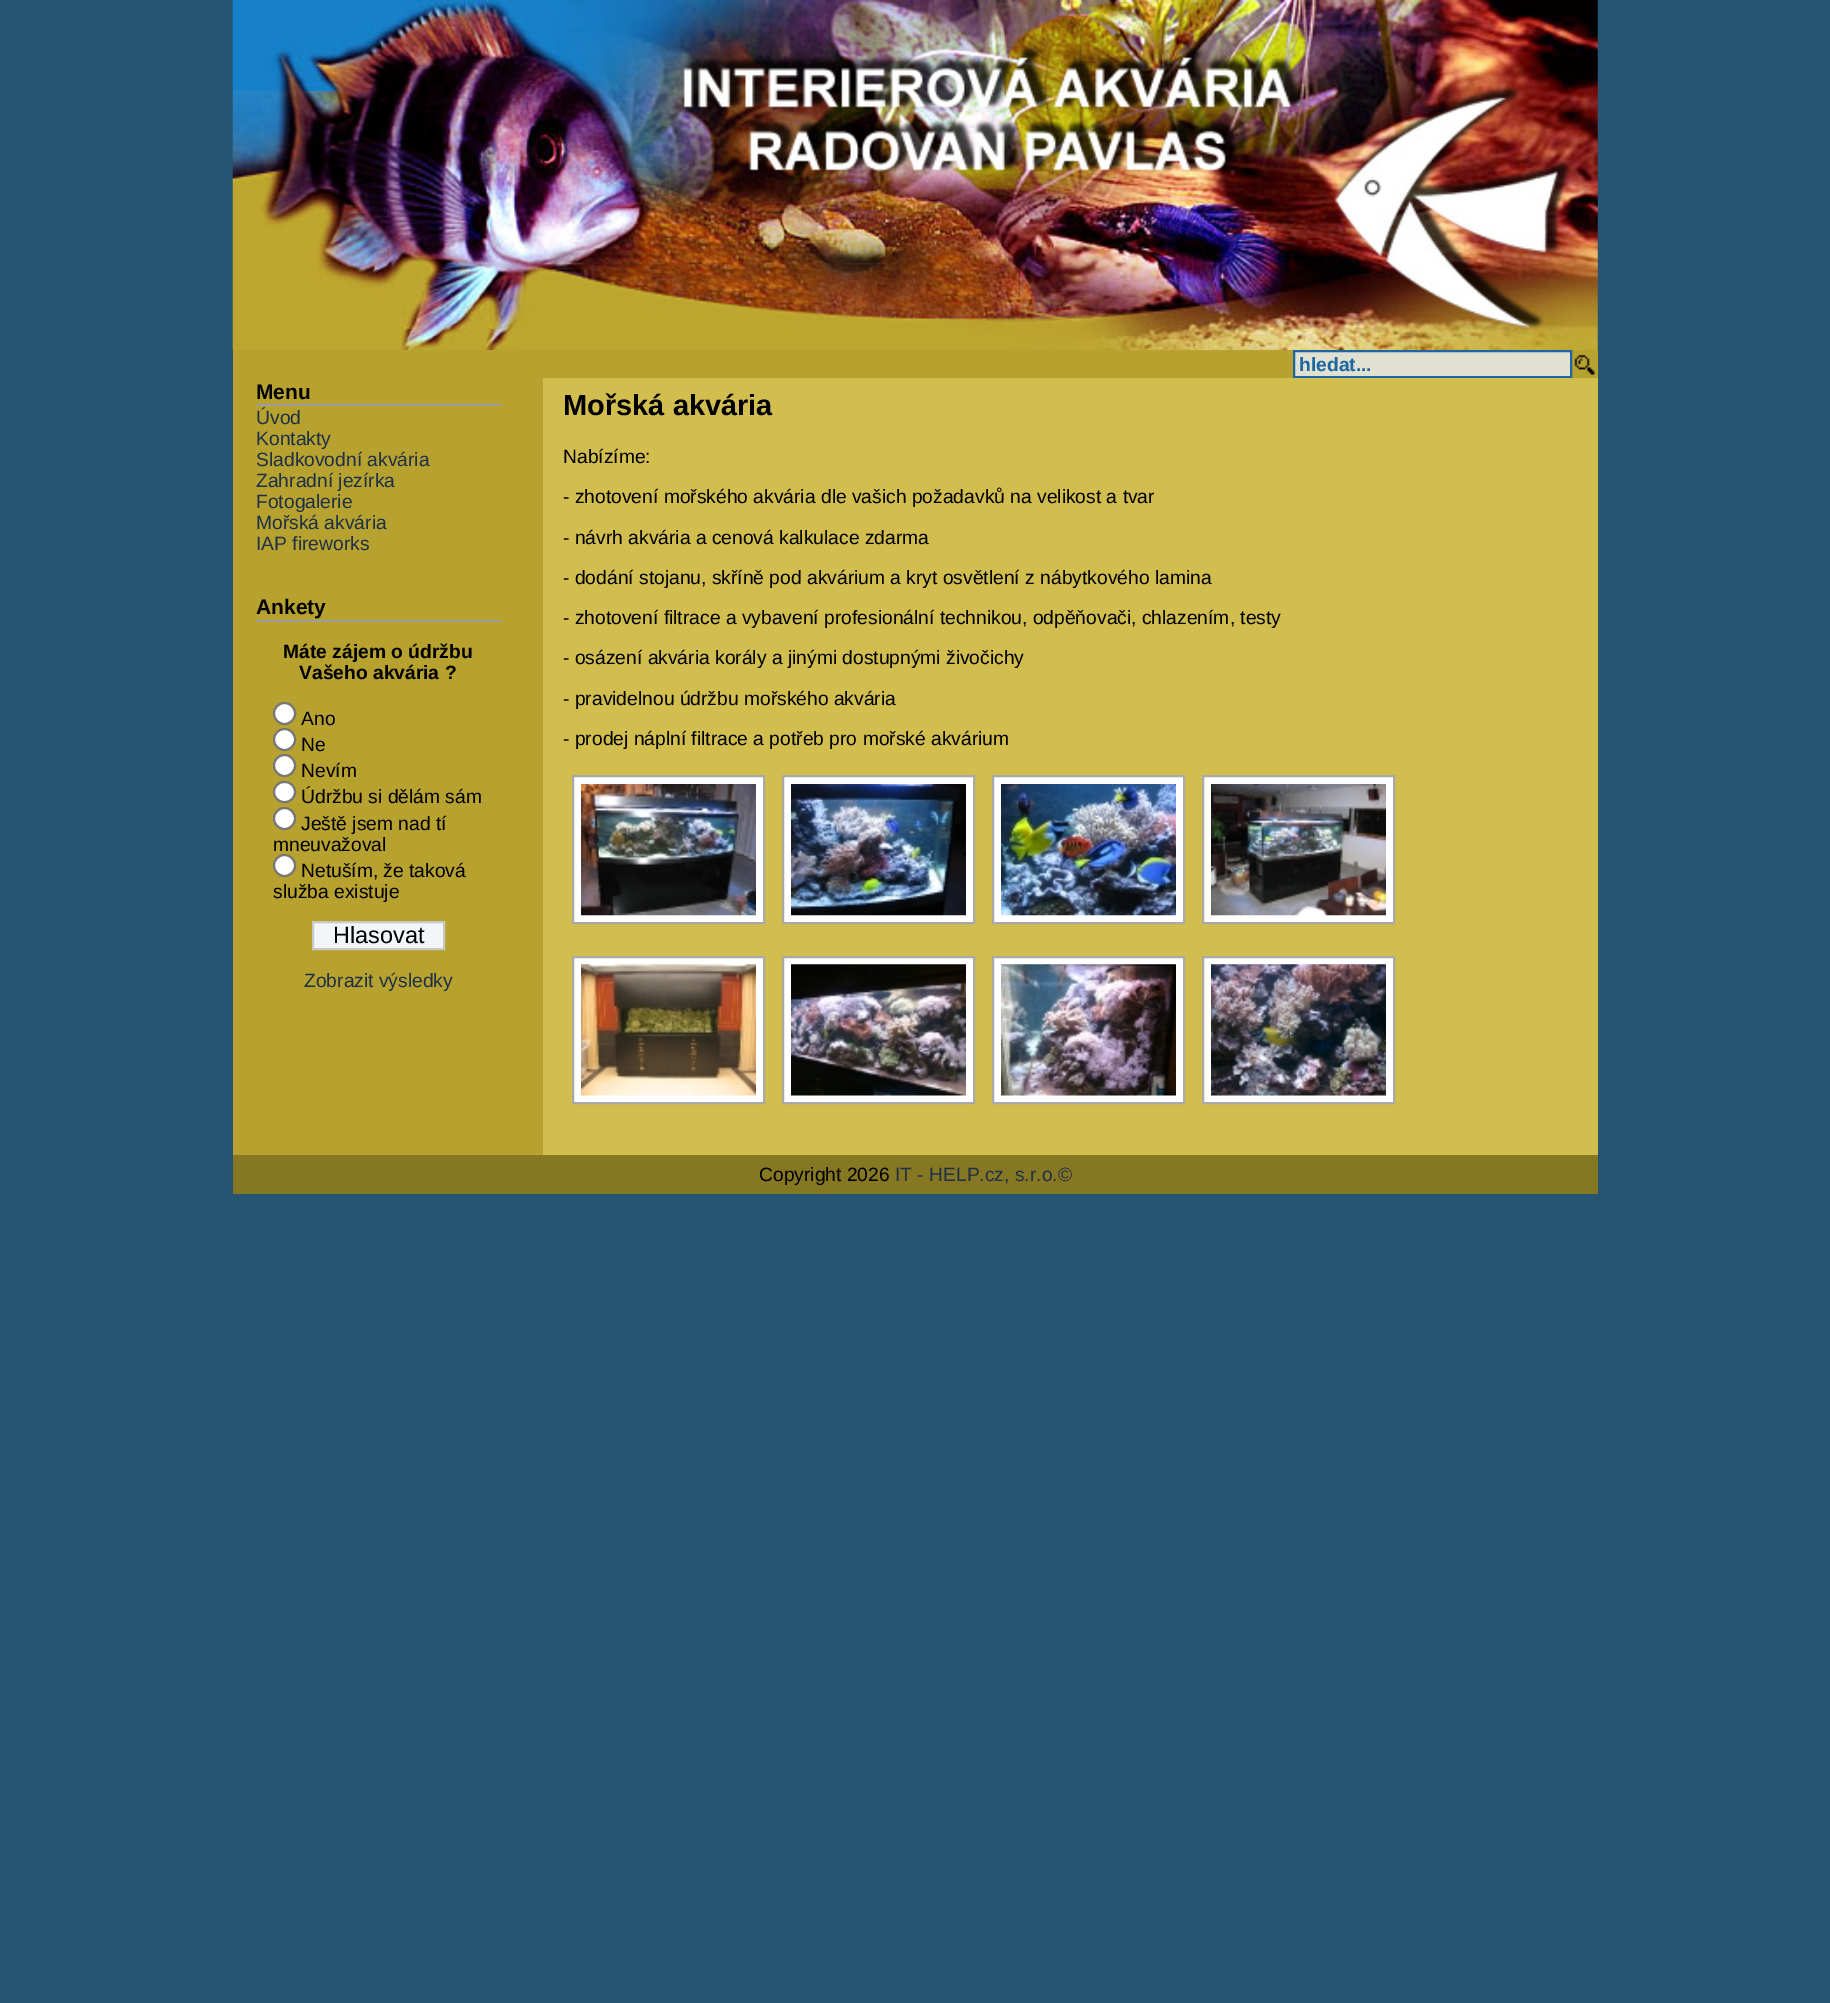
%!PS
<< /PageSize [1830 2003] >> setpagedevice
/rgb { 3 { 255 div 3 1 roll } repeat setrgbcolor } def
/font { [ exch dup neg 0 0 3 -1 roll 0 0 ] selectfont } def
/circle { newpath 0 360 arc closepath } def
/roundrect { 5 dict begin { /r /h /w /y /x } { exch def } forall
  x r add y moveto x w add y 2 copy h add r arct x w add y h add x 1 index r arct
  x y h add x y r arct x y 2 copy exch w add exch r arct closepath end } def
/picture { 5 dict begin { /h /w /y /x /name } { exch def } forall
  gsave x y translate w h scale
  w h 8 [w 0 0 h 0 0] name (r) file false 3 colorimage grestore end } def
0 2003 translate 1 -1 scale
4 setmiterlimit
37 85 114 rgb
0 0 1830 2003 rectfill
(img/1.rgb) 232 0 1366 350 picture
183 161 47 rgb
233 350 1365 28 rectfill
224 224 211 rgb
1294 351 moveto 1571 351 lineto 1571 377 lineto 1294 377 lineto closepath gsave fill grestore
30 102 162 rgb
2 setlinewidth
stroke
(img/2.rgb) 1574 354 21 21 picture
[
  [233 378 310 777 183 161 47]
  [256 404 245 2 157 157 157]
  [256 620 245 2 157 157 157]
] { aload pop rgb rectfill } forall
255 255 255 rgb
284.5 713.5 10.5 circle gsave fill grestore
118 118 118 rgb
stroke
255 255 255 rgb
284.5 739.5 10.5 circle gsave fill grestore
118 118 118 rgb
stroke
255 255 255 rgb
284.5 765.5 10.5 circle gsave fill grestore
118 118 118 rgb
stroke
255 255 255 rgb
274 782 21 20 10 roundrect gsave fill grestore
118 118 118 rgb
stroke
255 255 255 rgb
284.5 818.5 10.5 circle gsave fill grestore
118 118 118 rgb
stroke
255 255 255 rgb
284.5 865.5 10.5 circle gsave fill grestore
118 118 118 rgb
stroke
243 246 248 rgb
313 922 moveto 444 922 lineto 444 949 lineto 313 949 lineto closepath gsave fill grestore
200 200 200 rgb
stroke
210 190 79 rgb
543 378 1055 777 rectfill
255 255 255 rgb
573 776 moveto 764 776 lineto 764 923 lineto 573 923 lineto closepath gsave fill grestore
169 169 169 rgb
stroke
(img/3.rgb) 581 784 175 132 picture
255 255 255 rgb
783 776 moveto 974 776 lineto 974 923 lineto 783 923 lineto closepath gsave fill grestore
169 169 169 rgb
stroke
(img/4.rgb) 791 784 175 132 picture
255 255 255 rgb
993 776 moveto 1184 776 lineto 1184 923 lineto 993 923 lineto closepath gsave fill grestore
169 169 169 rgb
stroke
(img/5.rgb) 1001 784 175 132 picture
255 255 255 rgb
1203 776 moveto 1394 776 lineto 1394 923 lineto 1203 923 lineto closepath gsave fill grestore
169 169 169 rgb
stroke
(img/6.rgb) 1211 784 175 132 picture
255 255 255 rgb
573 957 moveto 764 957 lineto 764 1103 lineto 573 1103 lineto closepath gsave fill grestore
169 169 169 rgb
stroke
(img/7.rgb) 581 964 175 132 picture
255 255 255 rgb
783 957 moveto 974 957 lineto 974 1103 lineto 783 1103 lineto closepath gsave fill grestore
169 169 169 rgb
stroke
(img/8.rgb) 791 964 175 132 picture
255 255 255 rgb
993 957 moveto 1184 957 lineto 1184 1103 lineto 993 1103 lineto closepath gsave fill grestore
169 169 169 rgb
stroke
(img/9.rgb) 1001 964 175 132 picture
255 255 255 rgb
1203 957 moveto 1394 957 lineto 1394 1103 lineto 1203 1103 lineto closepath gsave fill grestore
169 169 169 rgb
stroke
(img/10.rgb) 1211 964 175 132 picture
134 119 34 rgb
233 1155 1365 39 rectfill
/LiberationSans-Bold 19.25 font
30 102 162 rgb
1299 371 moveto (hledat...) show
/LiberationSans-Bold 21 font
0 0 0 rgb
256 399 moveto (Menu) show
/LiberationSans-Regular 19.25 font
30 49 70 rgb
[
  [(Úvod) 256 424]
  [(Kontakty) 256 445]
  [(Sladkovodní akvária) 256 466]
  [(Zahradní jezírka) 256 487]
  [(Fotogalerie) 256 508]
  [(Mořská akvária) 256 529]
  [(IAP fireworks) 256 550]
] { aload pop moveto show } forall
/LiberationSans-Bold 21 font
0 0 0 rgb
256 614 moveto (Ankety) show
/LiberationSans-Bold 19.25 font
283 658 moveto (Máte zájem o údržbu) show
299 679 moveto (Vašeho akvária ?) show
/LiberationSans-Regular 19.25 font
[
  [(Ano) 301 725]
  [(Ne) 301 751]
  [(Nevím) 301 777]
  [(Údržbu si dělám sám) 301 803]
  [(Ještě jsem nad tí) 301 830]
  [(mneuvažoval) 273 851]
  [(Netuším, že taková) 301 877]
  [(služba existuje) 273 898]
] { aload pop moveto show } forall
/LiberationSans-Regular 23.5 font
333 943 moveto (Hlasovat) show
/LiberationSans-Regular 19.25 font
30 49 70 rgb
304 987 moveto (Zobrazit výsledky) show
/LiberationSans-Bold 29 font
0 0 0 rgb
563 415 moveto (Mořská akvária) show
/LiberationSans-Regular 19.25 font
[
  [(Nabízíme:) 563 463]
  [(- zhotovení mořského akvária dle vašich požadavků na velikost a tvar) 563 503]
  [(- návrh akvária a cenová kalkulace zdarma) 563 544]
  [(- dodání stojanu, skříně pod akvárium a kryt osvětlení z nábytkového lamina) 563 584]
  [(- zhotovení filtrace a vybavení profesionální technikou, odpěňovači, chlazením, testy) 563 624]
  [(- osázení akvária korály a jinými dostupnými živočichy) 563 664]
  [(- pravidelnou údržbu mořského akvária) 563 705]
  [(- prodej náplní filtrace a potřeb pro mořské akvárium) 563 745]
  [(Copyright 2026) 759 1181]
] { aload pop moveto show } forall
30 49 70 rgb
895 1181 moveto (IT - HELP.cz, s.r.o.©) show
showpage
